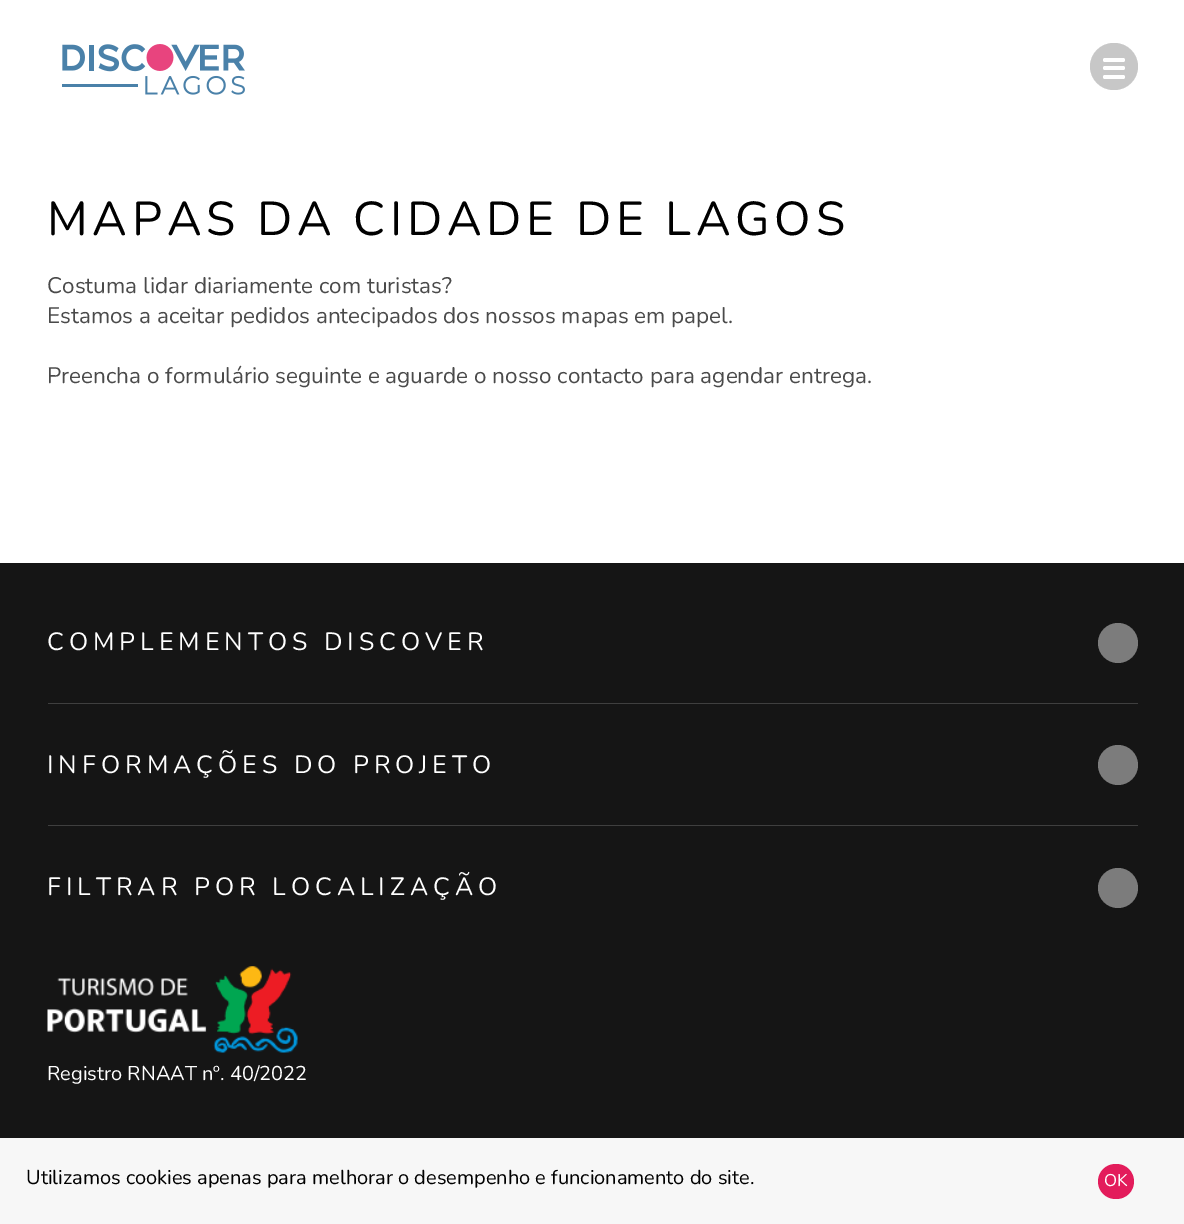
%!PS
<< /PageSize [1184 1224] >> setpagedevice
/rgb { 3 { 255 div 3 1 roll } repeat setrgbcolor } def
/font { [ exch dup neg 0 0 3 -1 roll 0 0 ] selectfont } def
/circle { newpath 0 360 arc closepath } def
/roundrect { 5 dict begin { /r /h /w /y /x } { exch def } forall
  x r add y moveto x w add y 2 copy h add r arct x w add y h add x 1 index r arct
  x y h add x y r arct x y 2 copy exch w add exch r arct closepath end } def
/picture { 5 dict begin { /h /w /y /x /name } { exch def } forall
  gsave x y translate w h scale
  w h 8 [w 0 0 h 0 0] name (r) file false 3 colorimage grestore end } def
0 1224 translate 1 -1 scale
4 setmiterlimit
255 255 255 rgb
0 0 1184 1224 rectfill
(img/1.rgb) 62 44 183 51 picture
199 199 199 rgb
1090 43 48 47 23.5 roundrect fill
255 255 255 rgb
1103 58 22 4 2 roundrect fill
1103 66 22 4 2 roundrect fill
1103 75 22 4 2 roundrect fill
21 21 21 rgb
0 563 1184 575 rectfill
63 63 63 rgb
48 703 1090 1 rectfill
124 124 124 rgb
1118 643 20 circle fill
63 63 63 rgb
48 825 1090 1 rectfill
124 124 124 rgb
1118 765 20 circle fill
1118 888 20 circle fill
(img/2.rgb) 47 966 251 87 picture
247 247 247 rgb
0 1138 1184 86 rectfill
227 28 91 rgb
1098 1164 36 35 17.5 roundrect fill
/Nunito-Regular 47.5 font
0 0 0 rgb
47 235 moveto 4.75 0 (MAPAS DA CIDADE DE LAGOS) ashow
/Nunito-Regular 22.5 font
74 74 74 rgb
[
  [(Costuma lidar diariamente com turistas?) 47 293]
  [(Estamos a aceitar pedidos antecipados dos nossos mapas em papel.) 47 323]
  [(Preencha o formulário seguinte e aguarde o nosso contacto para agendar entrega.) 47 383]
] { aload pop moveto show } forall
/Nunito-Regular 25 font
255 255 255 rgb
47 650 moveto 5 0 (COMPLEMENTOS DISCOVER) ashow
47 773 moveto 5 0 (INFORMAÇÕES DO PROJETO) ashow
47 895 moveto 5 0 (FILTRAR POR LOCALIZAÇÃO) ashow
/Nunito-Regular 20 font
47 1080 moveto (Registro RNAAT nº. 40/2022) show
0 0 0 rgb
26 1184 moveto (Utilizamos cookies apenas para melhorar o desempenho e funcionamento do site.) show
/Nunito-Regular 17 font
255 255 255 rgb
1104 1186 moveto (OK) show
showpage
